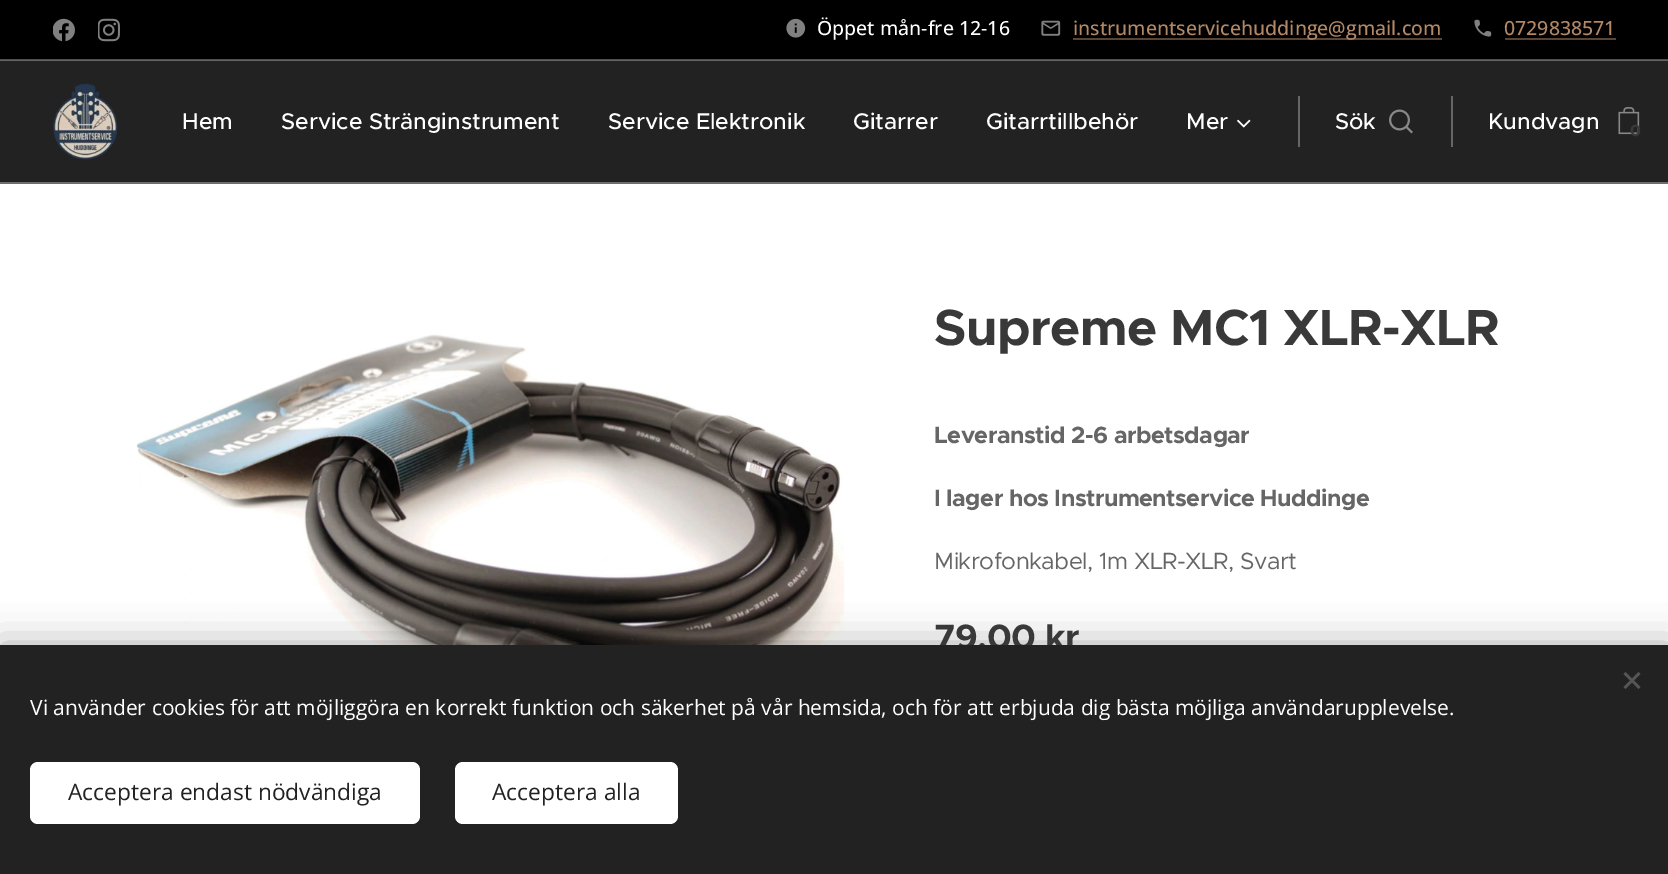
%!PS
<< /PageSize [1668 874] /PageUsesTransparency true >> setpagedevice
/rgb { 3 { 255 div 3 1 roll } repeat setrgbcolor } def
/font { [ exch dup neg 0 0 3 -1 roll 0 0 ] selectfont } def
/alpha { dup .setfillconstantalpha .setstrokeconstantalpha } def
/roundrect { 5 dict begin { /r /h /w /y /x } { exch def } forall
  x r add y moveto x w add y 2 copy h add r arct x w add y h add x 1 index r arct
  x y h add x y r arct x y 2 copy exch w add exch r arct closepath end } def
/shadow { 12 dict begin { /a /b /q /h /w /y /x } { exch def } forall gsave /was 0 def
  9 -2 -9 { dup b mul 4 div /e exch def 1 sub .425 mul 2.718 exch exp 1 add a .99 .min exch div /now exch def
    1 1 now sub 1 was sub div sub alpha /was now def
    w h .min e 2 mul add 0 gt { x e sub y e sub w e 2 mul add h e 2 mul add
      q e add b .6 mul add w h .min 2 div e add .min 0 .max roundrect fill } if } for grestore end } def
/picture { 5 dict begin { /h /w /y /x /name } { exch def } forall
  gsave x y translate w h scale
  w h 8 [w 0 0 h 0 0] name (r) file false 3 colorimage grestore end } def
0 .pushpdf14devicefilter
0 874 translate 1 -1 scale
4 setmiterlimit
255 255 255 rgb
0 0 1668 874 rectfill
0 0 0 rgb
0 0 1668 59 rectfill
77 77 77 rgb
0 59 1668 1 rectfill
(img/1.rgb) 53 18 22 24 picture
(img/2.rgb) 98 18 22 24 picture
(img/3.rgb) 786 18 20 20 picture
(img/4.rgb) 1041 20 20 16 picture
90 68 51 rgb
1073 38 369 2 rectfill
(img/5.rgb) 1474 19 18 18 picture
[
  [1505 38 111 2 90 68 51]
  [0 61 1668 121 34 34 34]
  [0 60 1668 1 100 100 100]
] { aload pop rgb rectfill } forall
(img/6.rgb) 53 83 65 77 picture
(img/7.rgb) 1237 119 14 9 picture
102 102 102 rgb
1298 96 2 51 rectfill
(img/8.rgb) 1389 109 24 25 picture
1451 96 2 51 rectfill
(img/9.rgb) 1618 107 22 28 picture
110 110 110 rgb
0 182 1668 2 rectfill
(img/10.rgb) 136 334 709 311 picture
0 0 0 rgb
0 645 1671 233 0 19 0.33 shadow
/OpenSans-Medium 19.5 font
255 255 255 rgb
817 35 moveto (Öppet mån-fre 12-16) show
179 136 101 rgb
1073 35 moveto (instrumentservicehuddinge@gmail.com) show
1504 35 moveto (0729838571) show
/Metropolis-Medium 22.75 font
255 255 255 rgb
[
  [(Hem) 182 129]
  [(Service Stränginstrument) 281 129]
  [(Service Elektronik) 608 129]
  [(Gitarrer) 853 129]
  [(Gitarrtillbehör) 986 129]
  [(Mer) 1186 129]
  [(Sök) 1335 129]
  [(Kundvagn) 1488 129]
] { aload pop moveto show } forall
/Montserrat-Bold 16 font
57 57 57 rgb
1630 136 moveto (0) show
/Metropolis-Bold 51 font
934 345 moveto -0.5 0 (Supreme MC1 XLR-XLR) ashow
/Metropolis-Bold 23.5 font
102 102 102 rgb
934 443 moveto -0.5 0 (Leveranstid 2-6 arbetsdagar) ashow
934 506 moveto -0.5 0 (I lager hos Instrumentservice Huddinge) ashow
/Metropolis-Regular 23.5 font
934 569 moveto -0.5 0 (Mikrofonkabel, 1m XLR-XLR, Svart) ashow
/Metropolis-Bold 35.25 font
57 57 57 rgb
934 649 moveto -0.5 0 (79,00 kr) ashow
34 34 34 rgb
0 645 1668 229 rectfill
85 85 85 rgb
1623.5 687 moveto 1638.5 672 lineto 1640.5 674 lineto 1625.5 689 lineto closepath fill
1625.5 672 moveto 1640.5 687 lineto 1638.5 689 lineto 1623.5 674 lineto closepath fill
/OpenSans-Regular 21 font
255 255 255 rgb
30 715 moveto (Vi använder cookies för att möjliggöra en korrekt funktion och säkerhet på vår hemsida, och för att erbjuda dig bästa möjliga användarupplevelse.) show
30 762 390 62 8 roundrect fill
/OpenSans-Regular 22.75 font
34 34 34 rgb
68 800 moveto (Acceptera endast nödvändiga) show
255 255 255 rgb
455 762 223 62 8 roundrect fill
34 34 34 rgb
492 800 moveto (Acceptera alla) show
.poppdf14devicefilter showpage
